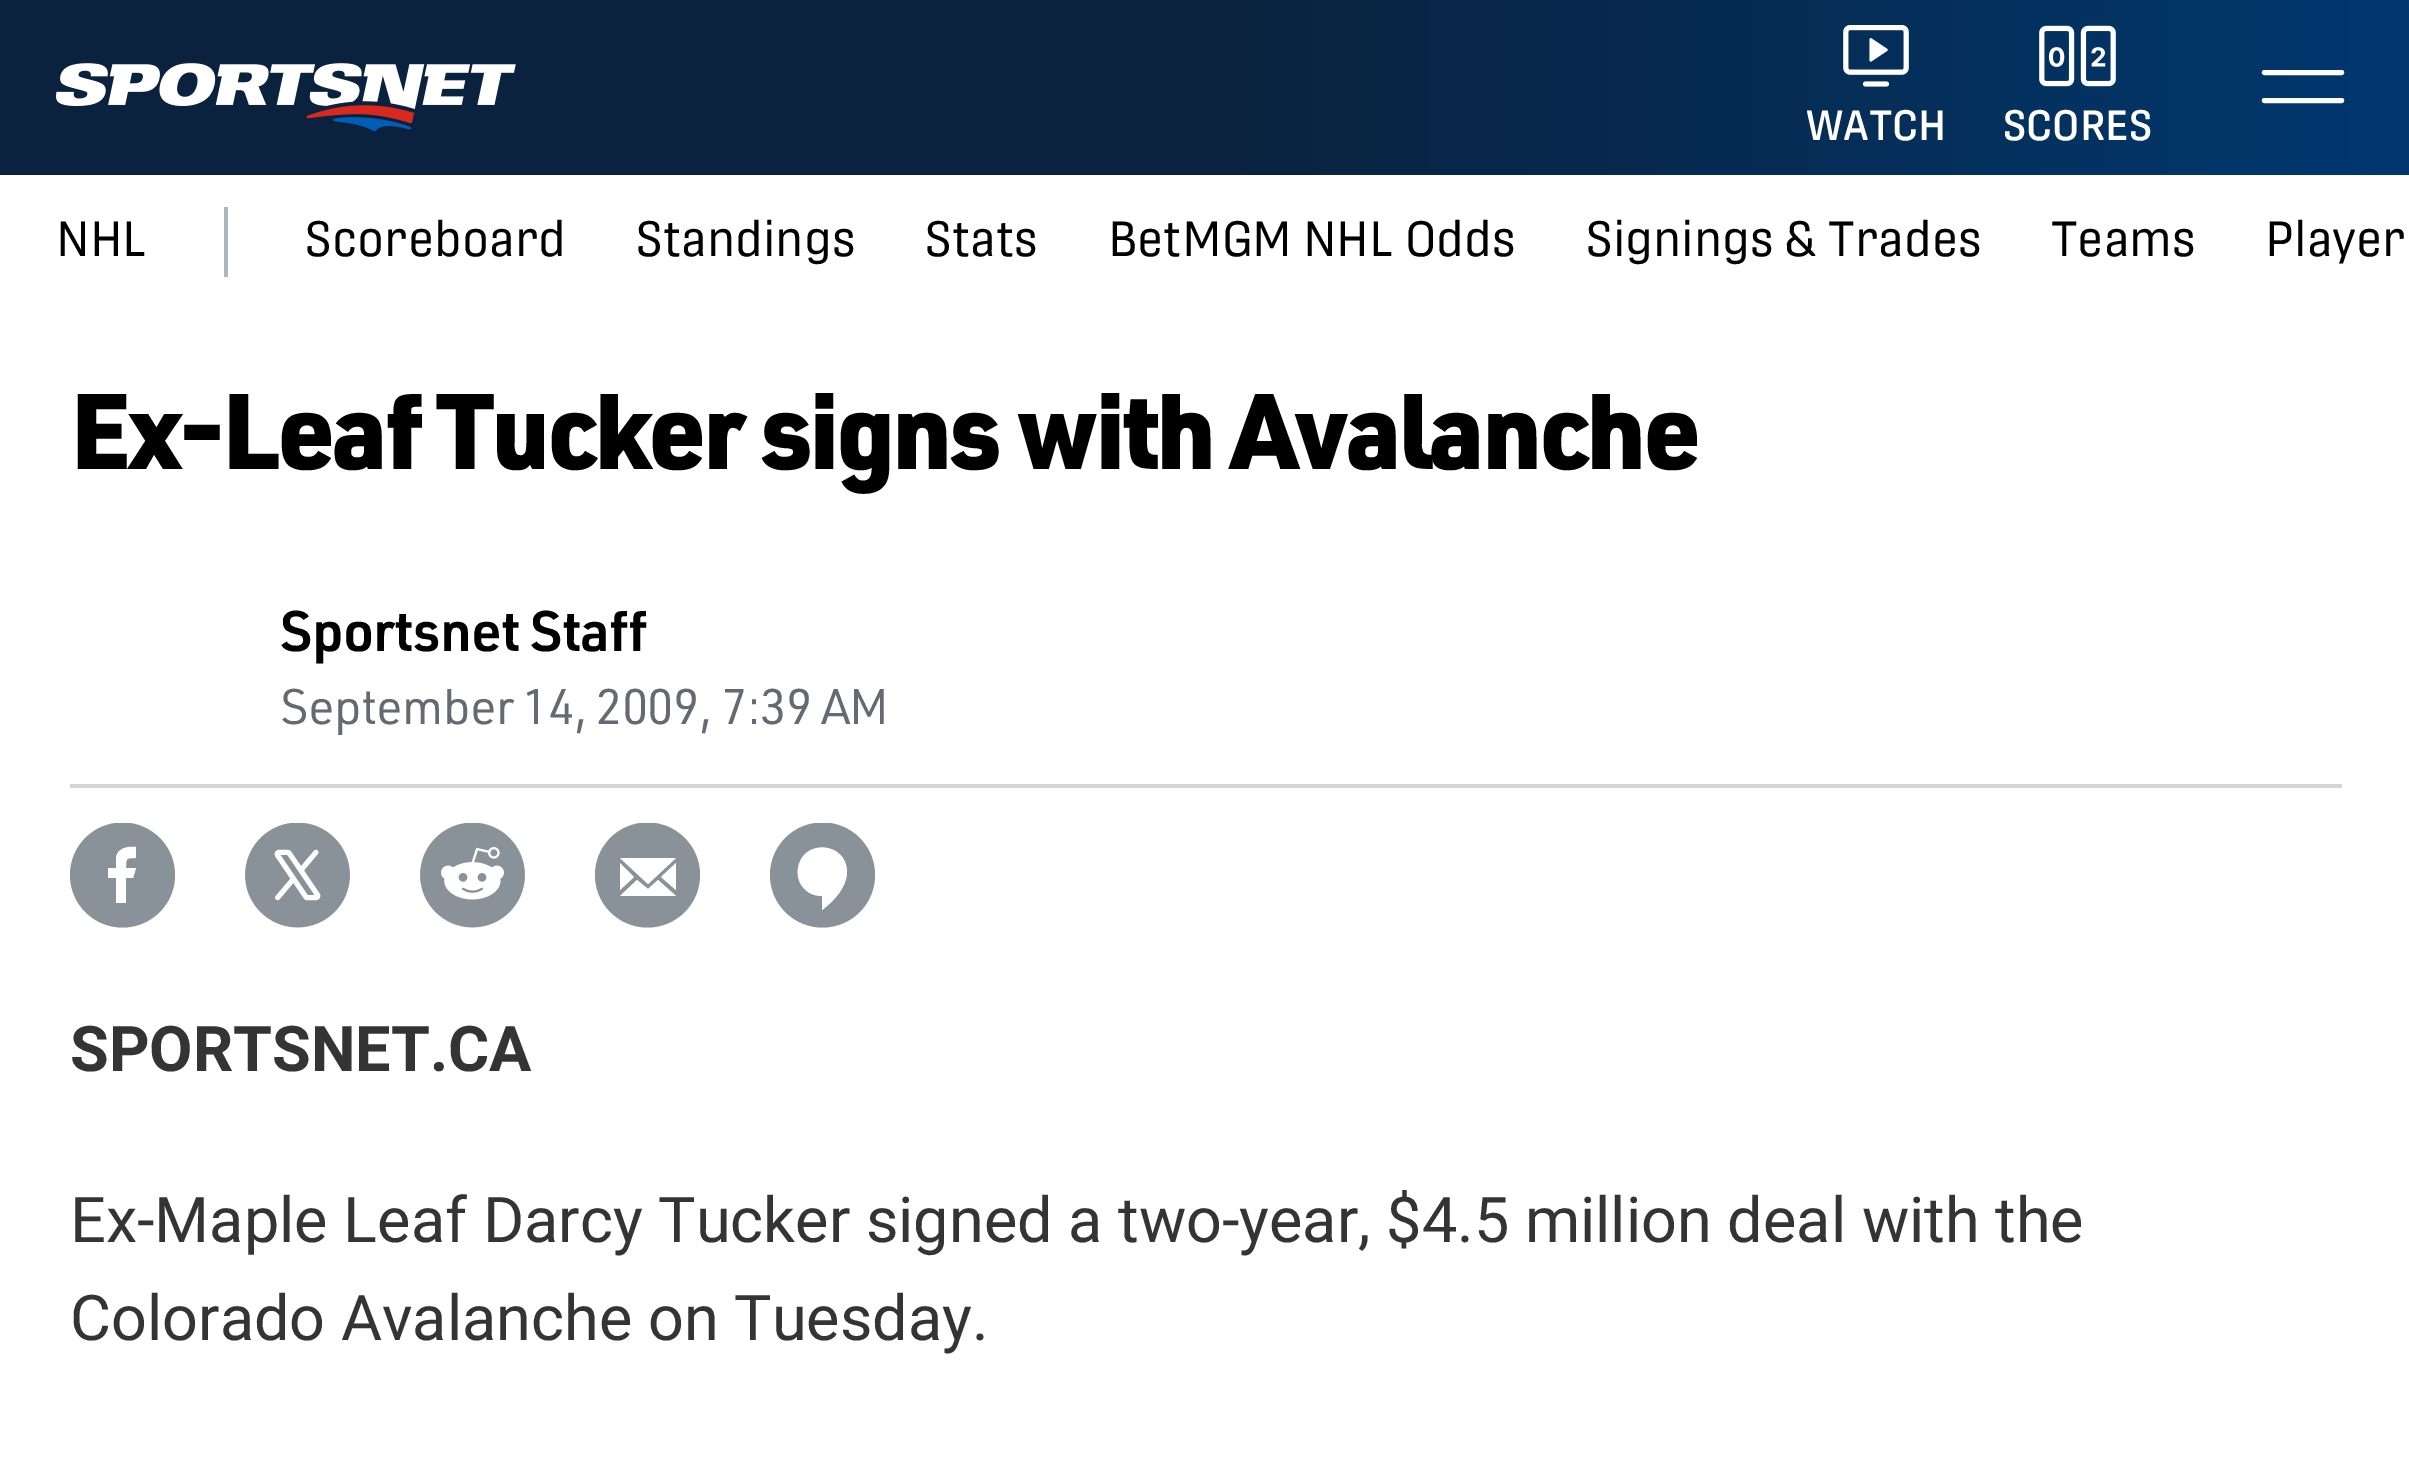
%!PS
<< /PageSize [2409 1464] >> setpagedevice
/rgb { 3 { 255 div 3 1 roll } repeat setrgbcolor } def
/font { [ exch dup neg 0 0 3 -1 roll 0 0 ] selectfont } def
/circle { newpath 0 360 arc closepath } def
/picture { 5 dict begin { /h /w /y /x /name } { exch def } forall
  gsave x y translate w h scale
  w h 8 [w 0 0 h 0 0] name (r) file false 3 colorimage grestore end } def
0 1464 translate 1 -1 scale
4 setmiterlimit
255 255 255 rgb
0 0 2409 1464 rectfill
gsave 0 0 moveto 2409 0 lineto 2409 175 lineto 0 175 lineto closepath clip newpath
<< /ShadingType 2 /ColorSpace /DeviceRGB /Coords [0 88 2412 87] /Extend [true true] /Function << /FunctionType 3 /Domain [0 1] /Functions [<< /FunctionType 2 /Domain [0 1] /C0 [0.043 0.133 0.243] /C1 [0.043 0.133 0.243] /N 1 >> << /FunctionType 2 /Domain [0 1] /C0 [0.043 0.133 0.243] /C1 [0 0.22 0.435] /N 1 >>] /Bounds [0.5] /Encode [0 1 0 1] >> >> shfill grestore
(img/1.rgb) 56 63 460 69 picture
gsave
2261 70 84 7 rectclip
5.2 setlinewidth
1 setlinecap
2264.5 72.5 moveto 2341.5 72.5 lineto stroke
grestore
gsave
2261 98 84 7 rectclip
5.2 setlinewidth
1 setlinecap
2264.5 100.5 moveto 2341.5 100.5 lineto stroke
grestore
(img/2.rgb) 1843 25 66 62 picture
(img/3.rgb) 2039 25 77 62 picture
173 181 189 rgb
224 207 4 70 rectfill
212 212 212 rgb
70 784 2272 4 rectfill
gsave
70 823 105 105 rectclip
138 146 153 rgb
122.5 875 52.5 circle fill
grestore
255 255 255 rgb
126 903 moveto 126 878 lineto 133 878 lineto 136 868 lineto 126 868 lineto 126 858 126 858 136 858 curveto 136 847 lineto 128 846 117 848 116 858 curveto 116 868 lineto 108 868 lineto 108 878 lineto 116 878 lineto 116 903 lineto closepath eofill
(img/4.rgb) 245 823 105 105 picture
(img/5.rgb) 420 823 105 105 picture
gsave
595 823 105 105 rectclip
138 146 153 rgb
647.5 875 52.5 circle fill
grestore
648 884 moveto 676 858 lineto 620 858 lineto closepath 676 863 moveto 676 890 lineto 661 877 lineto closepath 620 863 moveto 620 890 lineto 634 877 lineto closepath 648 889 moveto 637 880 lineto 620 896 lineto 676 896 lineto 658 880 lineto closepath eofill
gsave
770 823 105 105 rectclip
138 146 153 rgb
822.5 875 52.5 circle fill
grestore
847 872 moveto 847 887 834 901 822 910 curveto 822 896 lineto 814 896 807 893 802 886 curveto 798 881 797 874 798 868 curveto 803 838 847 842 847 872 curveto closepath eofill
/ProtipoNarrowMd-Medium 42 font
1806 140 moveto (WATCH) show
2003 140 moveto (SCORES) show
/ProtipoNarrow-Regular 49 font
0 0 0 rgb
[
  [(NHL) 56 256]
  [(Scoreboard) 305 256]
  [(Standings) 636 256]
  [(Stats) 925 256]
  [(BetMGM NHL Odds) 1108 256]
  [(Signings & Trades) 1586 256]
  [(Teams) 2051 256]
  [(Player) 2265 256]
] { aload pop moveto show } forall
/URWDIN-Black 105 font
70 469 moveto -3.5 0 (Ex-Leaf Tucker signs with Avalanche) ashow
/URWDIN-SemiBold 56 font
280 651 moveto -0.7 0 (Sportsnet Staff) ashow
/URWDIN-Regular 49 font
99 106 113 rgb
280 724 moveto -0.7 0 (September 14, 2009, 7:39 AM) ashow
/Roboto-Bold 63 font
52 52 52 rgb
70 1071 moveto (SPORTSNET.CA) show
/Roboto-Regular 63 font
70 1242 moveto (Ex-Maple Leaf Darcy Tucker signed a two-year, $4.5 million deal with the) show
70 1340 moveto (Colorado Avalanche on Tuesday.) show
showpage
